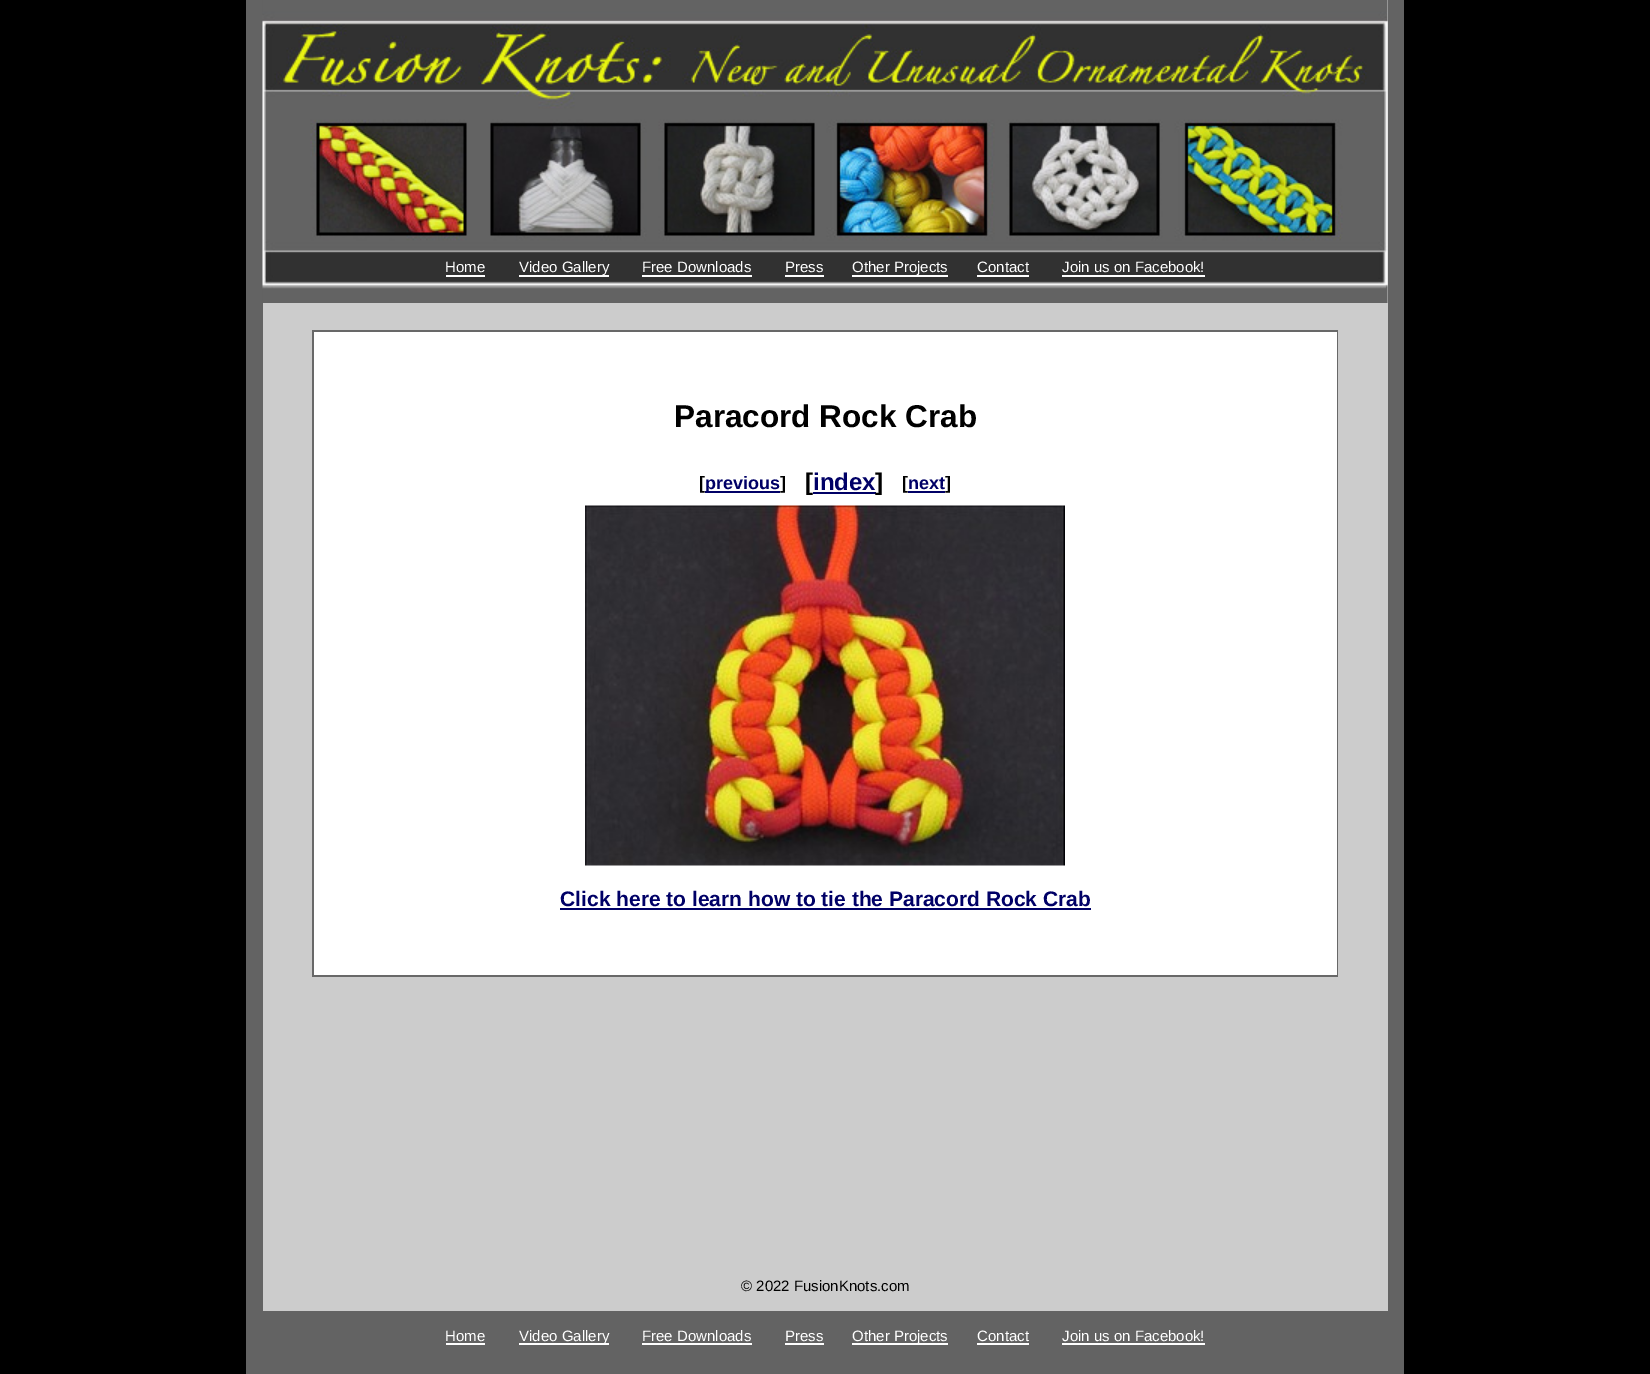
%!PS
<< /PageSize [1650 1374] >> setpagedevice
/rgb { 3 { 255 div 3 1 roll } repeat setrgbcolor } def
/font { [ exch dup neg 0 0 3 -1 roll 0 0 ] selectfont } def
/picture { 5 dict begin { /h /w /y /x /name } { exch def } forall
  gsave x y translate w h scale
  w h 8 [w 0 0 h 0 0] name (r) file false 3 colorimage grestore end } def
0 1374 translate 1 -1 scale
4 setmiterlimit
0 0 0 rgb
0 0 1650 1374 rectfill
99 99 99 rgb
246 0 17 1374 rectfill
204 204 204 rgb
263 0 1125 1311 rectfill
(img/1.rgb) 262 0 1126 303 picture
[
  [446 275 39 2 255 255 255]
  [519 275 90 2 255 255 255]
  [642 275 110 2 255 255 255]
  [785 275 39 2 255 255 255]
  [852 275 96 2 255 255 255]
  [977 275 52 2 255 255 255]
  [1062 275 143 2 255 255 255]
  [312 330 1026 647 104 104 104]
  [314 332 1023 643 255 255 255]
  [705 491 75 2 0 0 102]
  [813 492 63 2 0 0 102]
  [908 491 37 2 0 0 102]
] { aload pop rgb rectfill } forall
(img/2.rgb) 585 505 480 361 picture
[
  [560 908 531 2 0 0 102]
  [1388 0 16 1311 99 99 99]
  [263 1311 1141 63 99 99 99]
  [446 1343 39 2 255 255 255]
  [519 1343 90 2 255 255 255]
  [642 1343 110 2 255 255 255]
  [785 1343 39 2 255 255 255]
  [852 1343 96 2 255 255 255]
  [977 1343 52 2 255 255 255]
  [1062 1343 143 2 255 255 255]
] { aload pop rgb rectfill } forall
/LiberationSans-Regular 15 font
[
  [(Home) 445 272]
  [(Video Gallery) 519 272]
  [(Free Downloads) 642 272]
  [(Press) 785 272]
  [(Other Projects) 852 272]
  [(Contact) 977 272]
  [(Join us on Facebook!) 1062 272]
] { aload pop moveto show } forall
/LiberationSans-Bold 31.5 font
0 0 0 rgb
674 427 moveto (Paracord Rock Crab) show
/LiberationSans-Bold 18 font
699 489 moveto ([) show
0 0 102 rgb
705 489 moveto (previous) show
0 0 0 rgb
780 489 moveto (]) show
/LiberationSans-Bold 24 font
805 490 moveto ([) show
0 0 102 rgb
813 490 moveto (index) show
0 0 0 rgb
875 490 moveto (]) show
/LiberationSans-Bold 18 font
902 489 moveto ([) show
0 0 102 rgb
908 489 moveto (next) show
0 0 0 rgb
945 489 moveto (]) show
/LiberationSans-Bold 21 font
0 0 102 rgb
560 906 moveto (Click here to learn how to tie the Paracord Rock Crab) show
/LiberationSans-Regular 15 font
0 0 0 rgb
741 1291 moveto (© 2022 FusionKnots.com) show
255 255 255 rgb
[
  [(Home) 445 1341]
  [(Video Gallery) 519 1341]
  [(Free Downloads) 642 1341]
  [(Press) 785 1341]
  [(Other Projects) 852 1341]
  [(Contact) 977 1341]
  [(Join us on Facebook!) 1062 1341]
] { aload pop moveto show } forall
showpage
